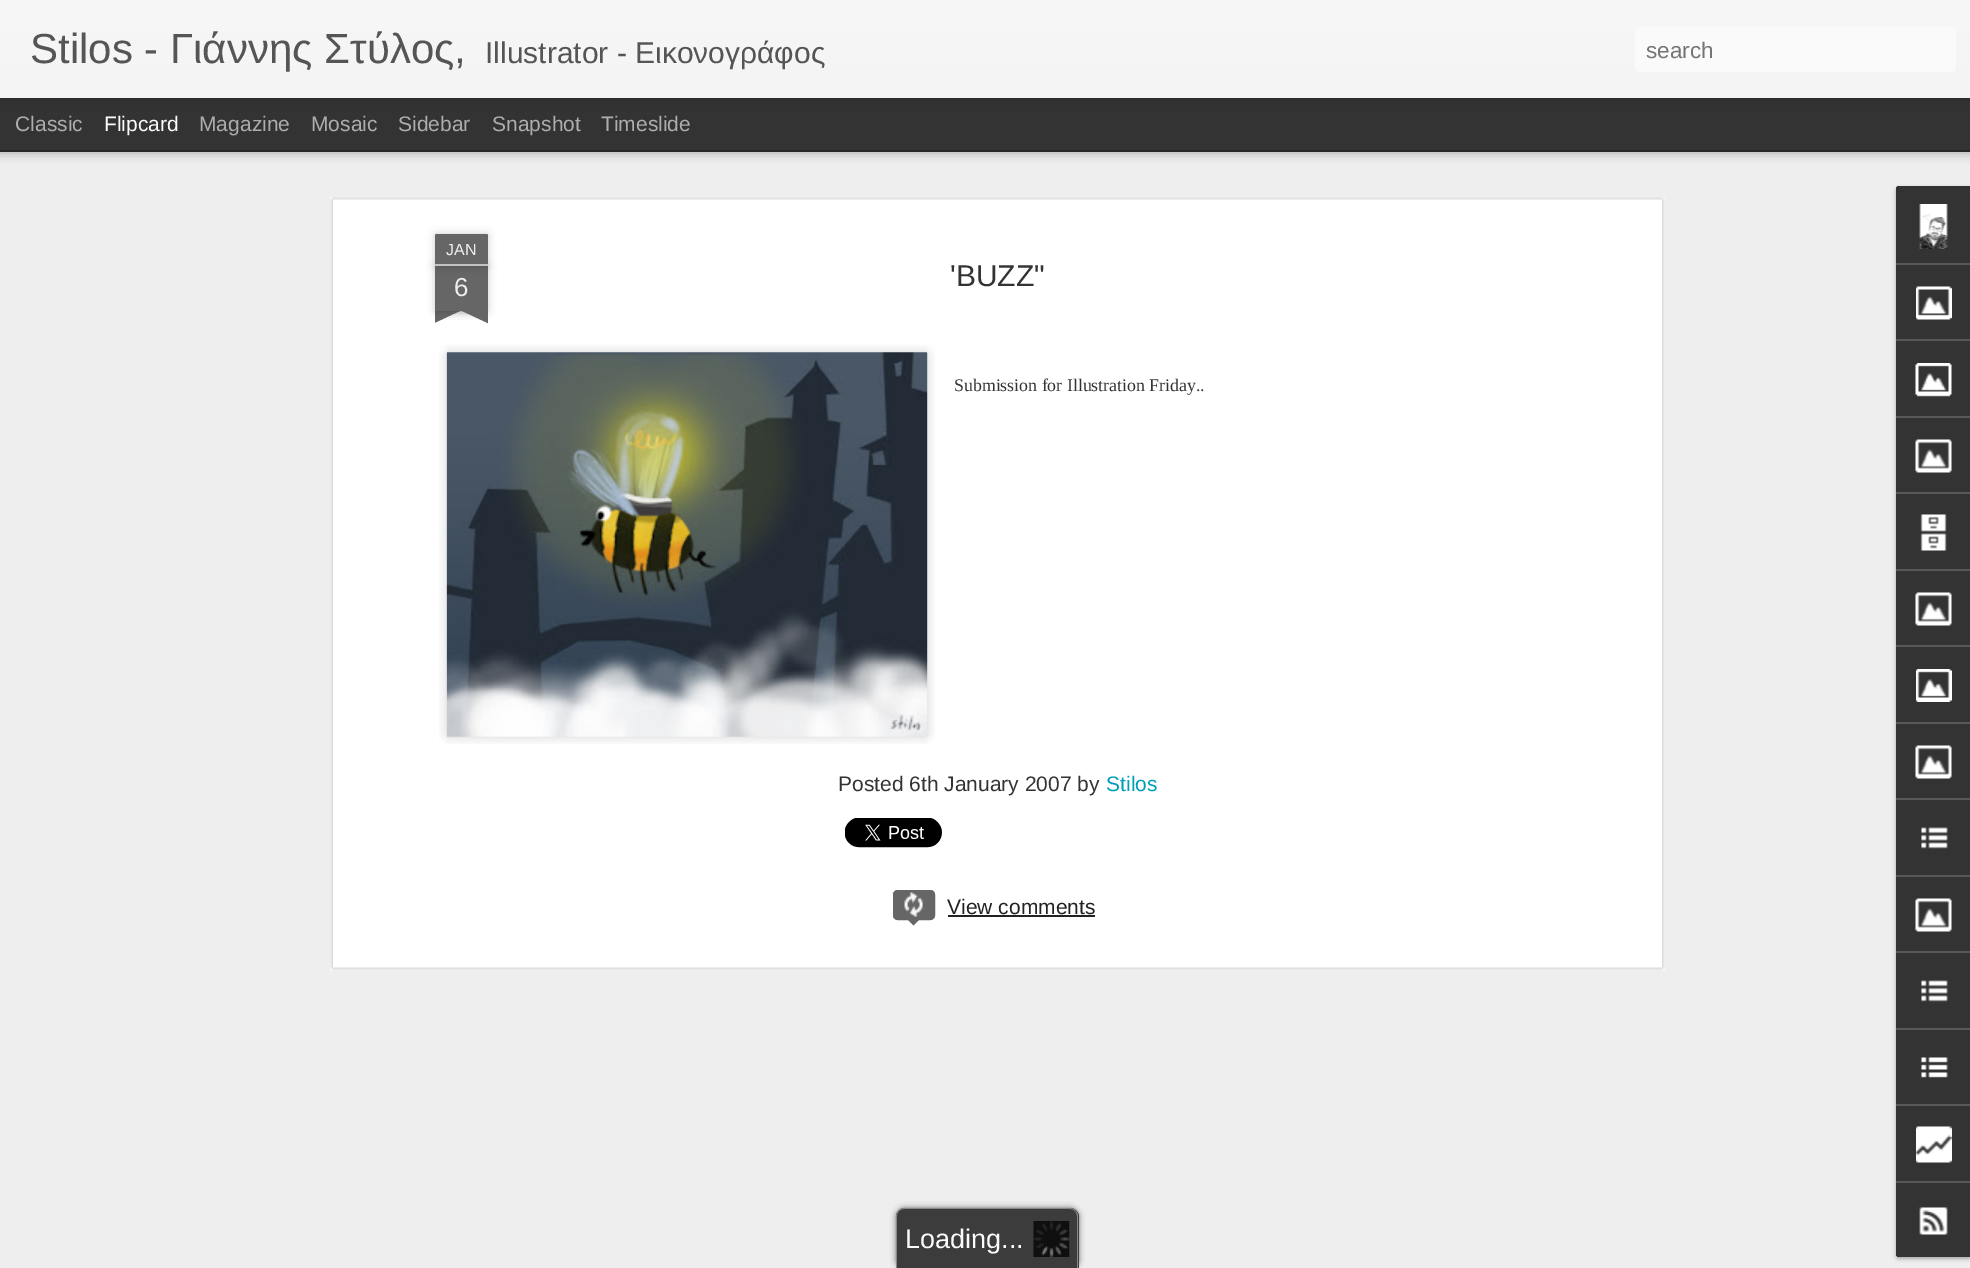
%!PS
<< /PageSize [1970 1268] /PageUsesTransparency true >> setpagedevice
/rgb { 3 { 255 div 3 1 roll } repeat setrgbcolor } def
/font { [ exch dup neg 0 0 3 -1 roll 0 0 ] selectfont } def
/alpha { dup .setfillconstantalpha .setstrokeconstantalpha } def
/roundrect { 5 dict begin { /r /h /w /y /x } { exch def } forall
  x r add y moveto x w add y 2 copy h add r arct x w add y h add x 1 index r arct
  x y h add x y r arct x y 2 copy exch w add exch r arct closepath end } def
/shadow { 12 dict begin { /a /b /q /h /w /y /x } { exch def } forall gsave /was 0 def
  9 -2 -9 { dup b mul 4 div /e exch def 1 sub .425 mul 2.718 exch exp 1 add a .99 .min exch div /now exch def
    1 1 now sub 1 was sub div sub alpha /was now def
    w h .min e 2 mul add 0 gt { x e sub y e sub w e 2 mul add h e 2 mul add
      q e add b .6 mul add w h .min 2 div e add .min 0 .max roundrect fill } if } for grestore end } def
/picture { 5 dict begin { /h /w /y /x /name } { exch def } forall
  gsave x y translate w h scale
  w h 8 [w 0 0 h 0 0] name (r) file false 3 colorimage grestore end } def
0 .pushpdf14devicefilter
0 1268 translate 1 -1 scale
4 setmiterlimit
51 51 51 rgb
0 0 1970 1268 rectfill
238 238 238 rgb
0 152 1970 1116 rectfill
0 0 0 rgb
0 98 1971 52 0 6 0.5 shadow
51 51 51 rgb
0 98 1970 52 rectfill
0 0 0 rgb
0 0 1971 98 0 4 0.3 shadow
gsave 0 0 moveto 1970 0 lineto 1970 98 lineto 0 98 lineto closepath clip newpath
<< /ShadingType 2 /ColorSpace /DeviceRGB /Coords [0 0 0 98] /Extend [true true] /Function << /FunctionType 2 /Domain [0 1] /C0 [0.969 0.969 0.969] /C1 [0.957 0.957 0.957] /N 1 >> >> shfill grestore
250 250 250 rgb
1635 27 321 45 5 roundrect fill
255 255 255 rgb
330 197 1335 774 rectfill
(img/1.rgb) 330 197 1335 774 picture
0 0 0 rgb
435 266 53 45 0 4 0.2 shadow
102 102 102 rgb
435 266 53 45 rectfill
0 0 0 rgb
435 234 53 32 1.5 4 0.2 shadow
102 102 102 rgb
436.5 234 moveto 486.5 234 lineto 487.5 234 488 234.5 488 235.5 curveto 488 266 lineto 435 266 lineto 435 235.5 lineto 435 234.5 435.5 234 436.5 234 curveto closepath fill
194 194 194 rgb
435 264 53 2 rectfill
gsave
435 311 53 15 rectclip
0 0 0 rgb
422 296 75 15 0 4 0.2 shadow
grestore
gsave
435 311 53 15 rectclip
102 102 102 rgb
422 312 moveto 490 280 lineto 496 294 lineto 428 326 lineto closepath fill
grestore
gsave
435 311 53 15 rectclip
0 0 0 rgb
426 296 75 15 0 4 0.2 shadow
grestore
gsave
435 311 53 15 rectclip
102 102 102 rgb
433 280 moveto 501 312 lineto 494 326 lineto 426 294 lineto closepath fill
grestore
(img/2.rgb) 439 345 496 399 picture
(img/3.rgb) 446 352 482 385 picture
(img/4.rgb) 845 818 97 30 picture
102 102 102 rgb
893 890 42 30 5 roundrect fill
(img/5.rgb) 904 892 19 25 picture
2 setlinewidth
894 891 40 28 4 roundrect stroke
906 918 moveto 921 918 lineto 913.5 925.5 lineto closepath fill
34 34 34 rgb
948 915 147 2 rectfill
0 0 0 rgb
1896 188 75 1071 3 2 0.3 shadow
51 51 51 rgb
1899 186 moveto 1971 186 lineto 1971 1257 lineto 1899 1257 lineto 1897.5 1257 1896 1255.5 1896 1254 curveto 1896 189 lineto 1896 187.5 1897.5 186 1899 186 curveto closepath fill
1899 186 moveto 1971 186 lineto 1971 263 lineto 1896 263 lineto 1896 189 lineto 1896 187.5 1897.5 186 1899 186 curveto closepath fill
(img/6.rgb) 1919 204 29 45 picture
88 88 88 rgb
1896 263 74 2 rectfill
(img/7.rgb) 1916 286 36 34 picture
1896 339 74 2 rectfill
(img/8.rgb) 1915 363 37 34 picture
1896 416 74 2 rectfill
(img/9.rgb) 1915 439 37 34 picture
1896 492 74 2 rectfill
(img/10.rgb) 1920 514 27 37 picture
1896 569 74 2 rectfill
(img/11.rgb) 1915 592 37 34 picture
1896 645 74 2 rectfill
(img/12.rgb) 1916 669 36 33 picture
1896 722 74 2 rectfill
(img/11.rgb) 1915 745 37 34 picture
1896 798 74 2 rectfill
(img/13.rgb) 1921 827 27 22 picture
1896 875 74 2 rectfill
(img/11.rgb) 1915 898 37 34 picture
1896 951 74 2 rectfill
(img/13.rgb) 1921 980 27 22 picture
1896 1028 74 2 rectfill
(img/14.rgb) 1921 1057 27 21 picture
1896 1104 74 2 rectfill
(img/15.rgb) 1916 1126 36 37 picture
51 51 51 rgb
1896 1181 moveto 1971 1181 lineto 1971 1257 lineto 1899 1257 lineto 1897.5 1257 1896 1255.5 1896 1254 curveto closepath fill
88 88 88 rgb
1896 1181 74 2 rectfill
(img/16.rgb) 1919 1207 29 28 picture
98 98 98 rgb
896 1208 183 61 9 3 1 shadow
60 60 60 rgb
905 1208 moveto 1070 1208 lineto 1075 1208 1079 1212 1079 1217 curveto 1079 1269 lineto 896 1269 lineto 896 1217 lineto 896 1212 900 1208 905 1208 curveto closepath fill
136 136 136 rgb
904 1208 moveto 1070 1208 lineto 1074 1208 1078 1212 1078 1216 curveto 1078 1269 lineto 896 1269 lineto 896 1216 lineto 896 1212 900 1208 904 1208 curveto closepath 904 1209 moveto 1070 1209 lineto 1074 1209 1077 1212 1077 1216 curveto 1077 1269 lineto 897 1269 lineto 897 1216 lineto 897 1212 900 1209 904 1209 curveto closepath eofill
(img/17.rgb) 1033 1221 37 36 picture
/LiberationSans-Regular 42 font
85 85 85 rgb
30 63 moveto (Stilos - Γιάννης Στύλος,) show
/LiberationSans-Regular 30 font
485 63 moveto (Illustrator - Εικονογράφος) show
/LiberationSans-Regular 22.5 font
117 117 117 rgb
1646 58 moveto (search) show
/LiberationSans-Regular 21 font
173 173 173 rgb
15 131 moveto (Classic) show
251 251 251 rgb
104 131 moveto (Flipcard) show
173 173 173 rgb
[
  [(Magazine) 199 131]
  [(Mosaic) 311 131]
  [(Sidebar) 398 131]
  [(Snapshot) 492 131]
  [(Timeslide) 601 131]
] { aload pop moveto show } forall
/LiberationSans-Regular 16 font
238 238 238 rgb
446 255 moveto (JAN) show
/LiberationSans-Regular 26 font
454 296 moveto (6) show
/LiberationSans-Regular 30 font
51 51 51 rgb
950 286 moveto ('BUZZ") show
/LiberationSerif-Regular 17.8 font
954 391 moveto (Submission for Illustration Friday..) show
/LiberationSans-Regular 21 font
838 791 moveto (Posted 6th January 2007 by) show
0 158 184 rgb
1106 791 moveto (Stilos) show
34 34 34 rgb
947 914 moveto (View comments) show
/LiberationSans-Regular 27 font
251 251 251 rgb
905 1248 moveto (Loading...) show
.poppdf14devicefilter showpage
